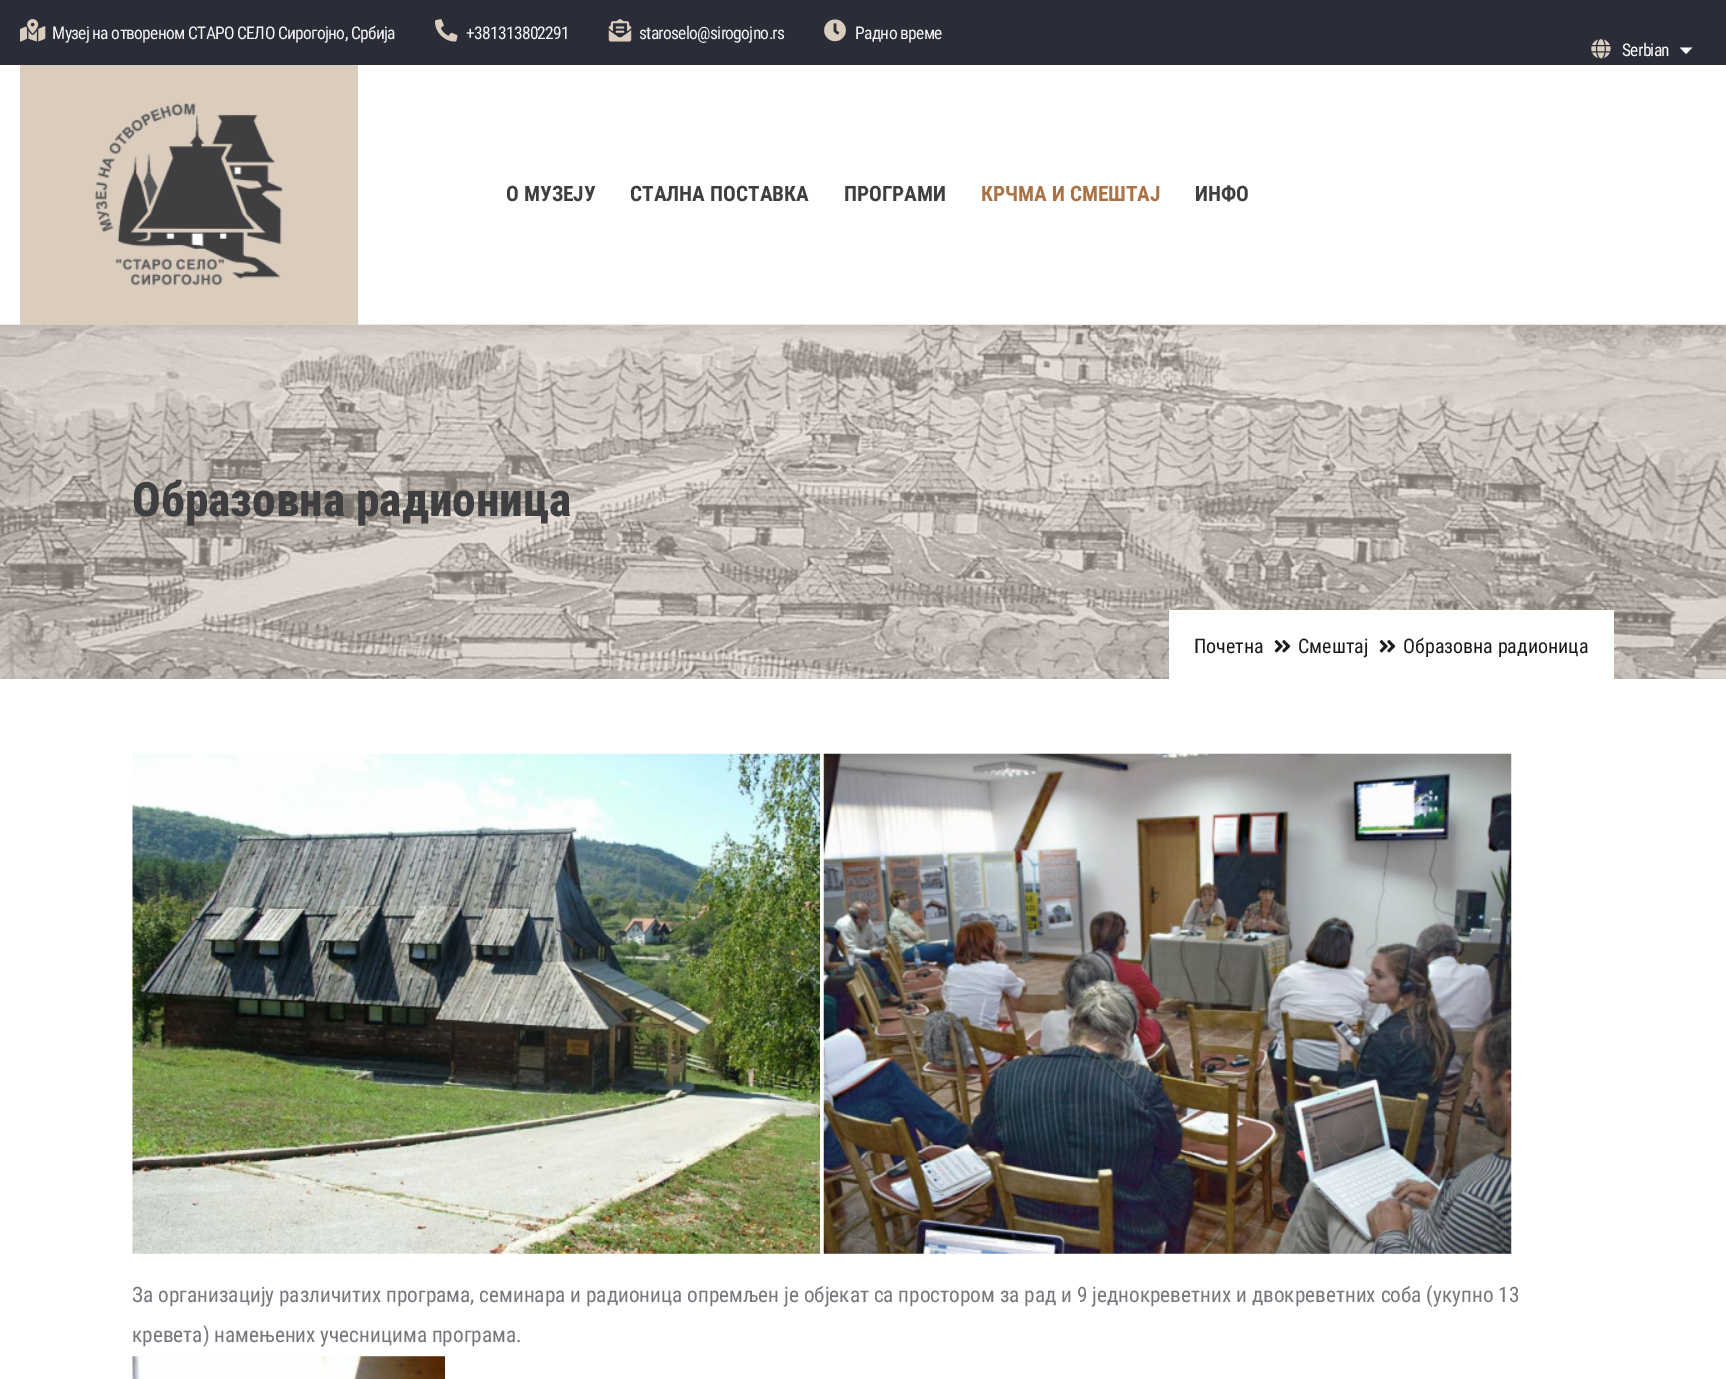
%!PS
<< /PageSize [1726 1379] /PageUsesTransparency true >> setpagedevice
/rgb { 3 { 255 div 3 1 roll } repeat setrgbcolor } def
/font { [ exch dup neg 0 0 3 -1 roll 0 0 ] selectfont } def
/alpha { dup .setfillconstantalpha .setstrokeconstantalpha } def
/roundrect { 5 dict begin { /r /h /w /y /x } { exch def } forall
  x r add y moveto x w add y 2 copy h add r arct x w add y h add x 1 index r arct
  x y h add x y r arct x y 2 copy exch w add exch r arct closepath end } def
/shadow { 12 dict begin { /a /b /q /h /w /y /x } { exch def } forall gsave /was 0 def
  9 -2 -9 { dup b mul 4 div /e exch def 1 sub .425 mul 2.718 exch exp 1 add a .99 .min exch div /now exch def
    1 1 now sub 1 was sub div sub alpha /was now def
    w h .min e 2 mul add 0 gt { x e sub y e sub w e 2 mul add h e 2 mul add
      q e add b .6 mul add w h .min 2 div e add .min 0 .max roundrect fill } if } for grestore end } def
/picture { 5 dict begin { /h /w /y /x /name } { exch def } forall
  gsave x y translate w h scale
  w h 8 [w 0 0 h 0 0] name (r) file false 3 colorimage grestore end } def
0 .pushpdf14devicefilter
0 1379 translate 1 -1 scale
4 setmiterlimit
255 255 255 rgb
0 0 1726 1379 rectfill
(img/7.rgb) 0 678 1726 1 picture
(img/8.rgb) 0 325 1726 354 picture
gsave
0 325 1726 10 rectclip
0 0 0 rgb
-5 -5 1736 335 0 6 0.1 shadow
grestore
235 235 235 rgb
0 324 1726 1 rectfill
42 44 56 rgb
0 0 1726 65 rectfill
(img/1.rgb) 20 19 26 23 picture
(img/2.rgb) 435 19 23 23 picture
(img/3.rgb) 608 19 24 23 picture
(img/4.rgb) 824 19 22 23 picture
(img/5.rgb) 1591 39 20 20 picture
255 255 255 rgb
1680 47.5 moveto 1692.5 47.5 lineto 1686 54 lineto closepath fill
218 205 190 rgb
20 65 338 260 rectfill
(img/6.rgb) 95 103 188 183 picture
255 255 255 rgb
1169 610 445 69 rectfill
(img/9.rgb) 1274 640 17 13 picture
(img/9.rgb) 1379 640 17 13 picture
(img/10.rgb) 132 753 688 501 picture
(img/11.rgb) 823 753 689 501 picture
(img/12.rgb) 132 1356 313 23 picture
/RobotoCondensed-Regular 17.5 font
245 245 245 rgb
52 39 moveto -0.7 0 (Музеј на отвореном СТАРО СЕЛО Сирогојно, Србија) ashow
466 39 moveto -0.7 0 (+381313802291) ashow
639 39 moveto -0.7 0 (staroselo@sirogojno.rs) ashow
855 39 moveto -0.7 0 (Радно време) ashow
255 255 255 rgb
1622 56 moveto -0.7 0 (Serbian) ashow
/RobotoCondensed-Bold 21.25 font
63 62 64 rgb
[
  [(О МУЗЕЈУ) 506 201]
  [(СТАЛНА ПОСТАВКА) 630 201]
  [(ПРОГРАМИ) 844 201]
] { aload pop moveto show } forall
170 114 69 rgb
981 201 moveto (КРЧМА И СМЕШТАЈ) show
63 62 64 rgb
1195 201 moveto (ИНФО) show
/RobotoCondensed-ExtraBold 47.5 font
132 516 moveto (Образовна радионица) show
/RobotoCondensed-Regular 20 font
26 26 26 rgb
[
  [(Почетна) 1194 653]
  [(Смештај) 1298 653]
  [(Образовна радионица) 1403 653]
] { aload pop moveto show } forall
/RobotoCondensed-Regular 21.25 font
116 120 124 rgb
132 1302 moveto (За организацију различитих програма, семинара и радионица опремљен је објекат са простором за рад и 9 једнокреветних и двокреветних соба \(укупно 13) show
132 1342 moveto (кревета\) намењених учесницима програма.) show
.poppdf14devicefilter showpage
